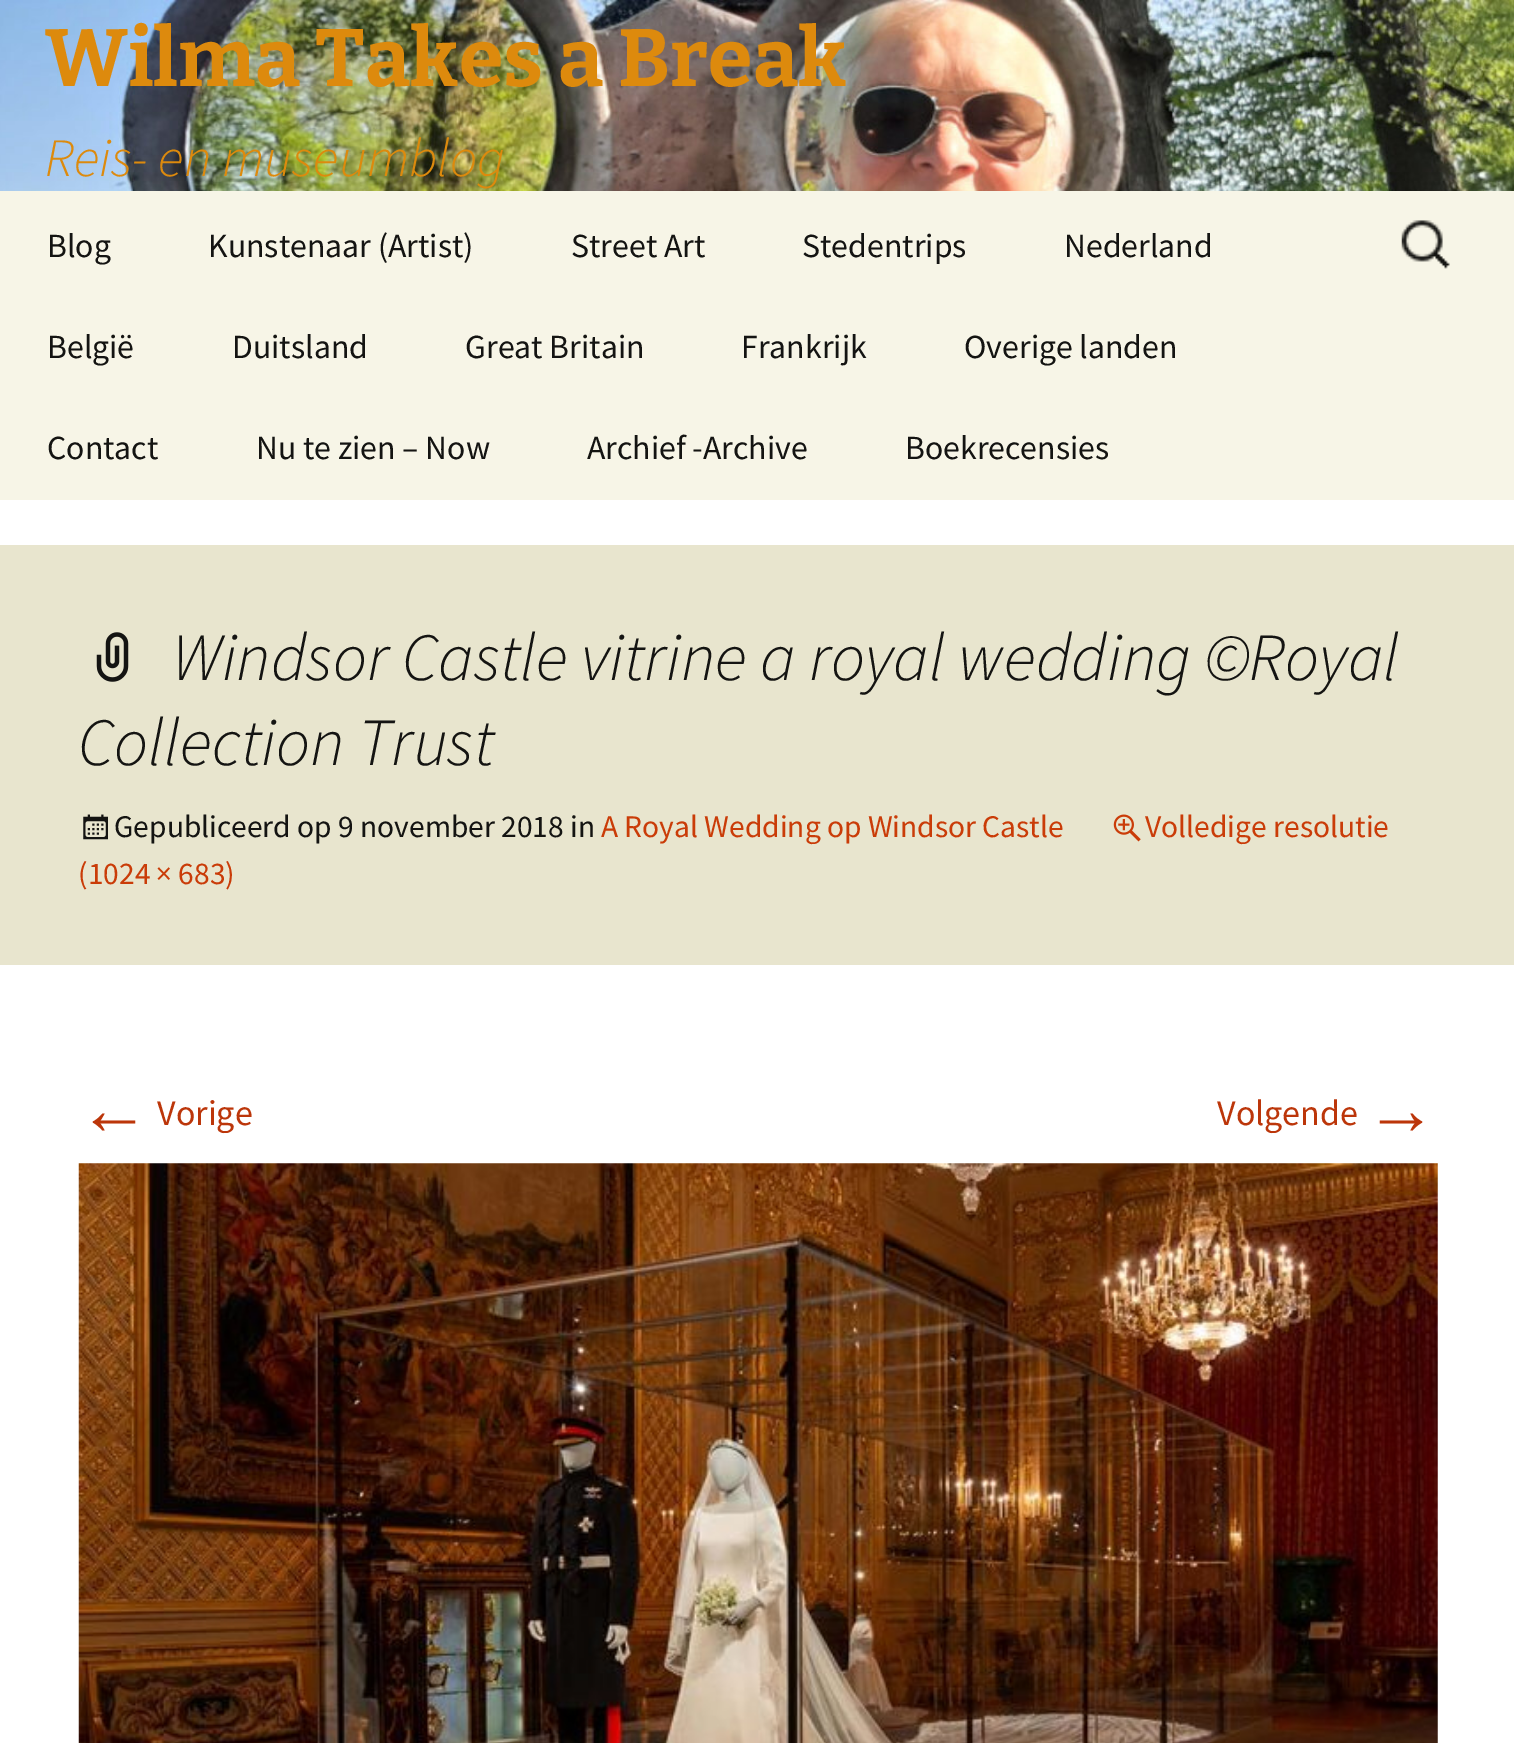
%!PS
<< /PageSize [1514 1743] >> setpagedevice
/rgb { 3 { 255 div 3 1 roll } repeat setrgbcolor } def
/font { [ exch dup neg 0 0 3 -1 roll 0 0 ] selectfont } def
/picture { 5 dict begin { /h /w /y /x /name } { exch def } forall
  gsave x y translate w h scale
  w h 8 [w 0 0 h 0 0] name (r) file false 3 colorimage grestore end } def
0 1743 translate 1 -1 scale
4 setmiterlimit
255 255 255 rgb
0 0 1514 1743 rectfill
(img/1.rgb) 0 0 1514 191 picture
247 245 231 rgb
0 191 1514 309 rectfill
(img/2.rgb) 1401 220 49 49 picture
232 229 206 rgb
0 545 1514 420 rectfill
(img/3.rgb) 96 632 33 50 picture
(img/4.rgb) 1113 814 28 28 picture
(img/5.rgb) 83 814 25 26 picture
(img/6.rgb) 78 1163 1360 580 picture
/Bitter-Thin 81 font
221 138 13 rgb
45 86 moveto (Wilma Takes a Break) show
/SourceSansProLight-LightItalic 54 font
45 176 moveto (Reis- en museumblog) show
/SourceSansPro-Regular 33.75 font
20 20 18 rgb
[
  [(Blog) 47 257]
  [(Kunstenaar \(Artist\)) 208 257]
  [(Street Art) 571 257]
  [(Stedentrips) 802 257]
  [(Nederland) 1064 257]
  [(België) 47 358]
  [(Duitsland) 232 358]
  [(Great Britain) 465 358]
  [(Frankrijk) 741 358]
  [(Overige landen) 964 358]
  [(Contact) 47 459]
  [(Nu te zien – Now) 256 459]
  [(Archief -Archive) 587 459]
  [(Boekrecensies) 905 459]
] { aload pop moveto show } forall
/SourceSansProLight-LightItalic 67.5 font
172 680 moveto (Windsor Castle vitrine a royal wedding ©Royal) show
78 765 moveto (Collection Trust) show
/SourceSansPro-Regular 31.5 font
202 60 8 rgb
1145 837 moveto (Volledige resolutie) show
78 884 moveto (\(1024 × 683\)) show
20 20 18 rgb
114 837 moveto (Gepubliceerd op 9 november 2018 in) show
202 60 8 rgb
601 837 moveto (A Royal Wedding op Windsor Castle) show
/LiberationSans-Regular 72 font
188 54 10 rgb
78 1134 moveto (←) show
/SourceSansPro-Regular 36 font
157 1125 moveto (Vorige) show
1217 1125 moveto (Volgende) show
/LiberationSans-Regular 72 font
1365 1134 moveto (→) show
showpage
